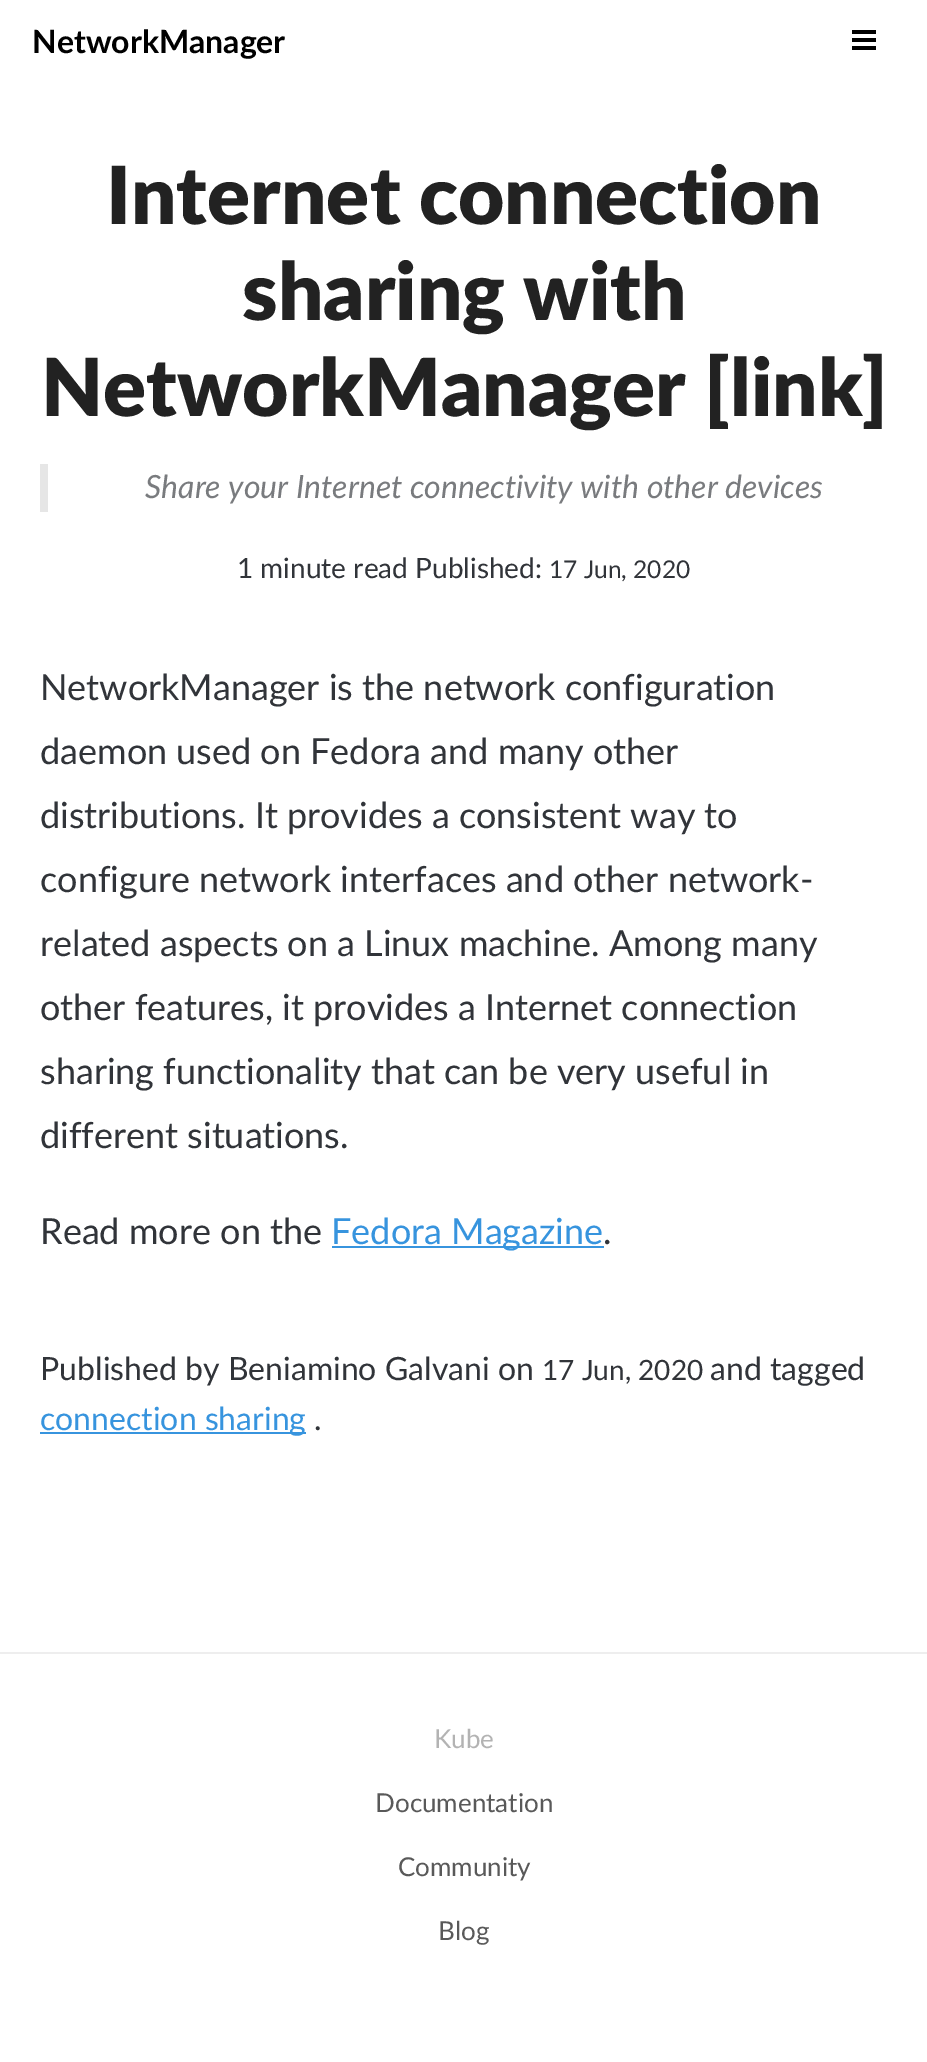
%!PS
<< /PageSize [927 2062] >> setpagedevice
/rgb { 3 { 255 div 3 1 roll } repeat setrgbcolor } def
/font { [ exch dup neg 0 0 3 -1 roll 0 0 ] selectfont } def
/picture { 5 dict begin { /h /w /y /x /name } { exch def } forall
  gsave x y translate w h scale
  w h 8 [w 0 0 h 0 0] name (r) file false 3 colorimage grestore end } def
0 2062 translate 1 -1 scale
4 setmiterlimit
255 255 255 rgb
0 0 927 2062 rectfill
(img/1.rgb) 852 30 24 20 picture
[
  [40 464 8 48 230 230 230]
  [332 1246 272 2 55 148 222]
  [40 1432 266 2 55 148 222]
  [0 1652 927 2 238 238 238]
] { aload pop rgb rectfill } forall
/Lato-Bold 32 font
0 0 0 rgb
32 53 moveto (NetworkManager) show
/Lato-Black 80 font
34 34 34 rgb
[
  [(Internet connection) 106 224]
  [(sharing with) 242 320]
  [(NetworkManager [link]) 41 416]
] { aload pop moveto show } forall
/Lato-Italic 32 font
121 123 126 rgb
145 498 moveto (Share your Internet connectivity with other devices) show
/Lato-Regular 28 font
49 52 57 rgb
237 578 moveto (1 minute read Published:) show
/Lato-Regular 24.5 font
549 578 moveto (17 Jun, 2020) show
/Lato-Regular 36 font
[
  [(NetworkManager is the network configuration) 40 700]
  [(daemon used on Fedora and many other) 40 764]
  [(distributions. It provides a consistent way to) 40 828]
  [(configure network interfaces and other network-) 40 892]
  [(related aspects on a Linux machine. Among many) 40 956]
  [(other features, it provides a Internet connection) 40 1020]
  [(sharing functionality that can be very useful in) 40 1084]
  [(different situations.) 40 1148]
  [(Read more on the) 40 1244]
] { aload pop moveto show } forall
55 148 222 rgb
331 1244 moveto (Fedora Magazine) show
49 52 57 rgb
603 1244 moveto (.) show
/Lato-Regular 32 font
40 1380 moveto (Published by Beniamino Galvani on) show
/Lato-Regular 28 font
542 1380 moveto (17 Jun, 2020) show
/Lato-Regular 32 font
710 1380 moveto (and tagged) show
55 148 222 rgb
40 1430 moveto (connection sharing) show
49 52 57 rgb
314 1430 moveto (.) show
/Lato-Regular 26 font
179 179 179 rgb
434 1748 moveto (Kube) show
89 89 89 rgb
[
  [(Documentation) 375 1812]
  [(Community) 398 1876]
  [(Blog) 438 1940]
] { aload pop moveto show } forall
showpage
